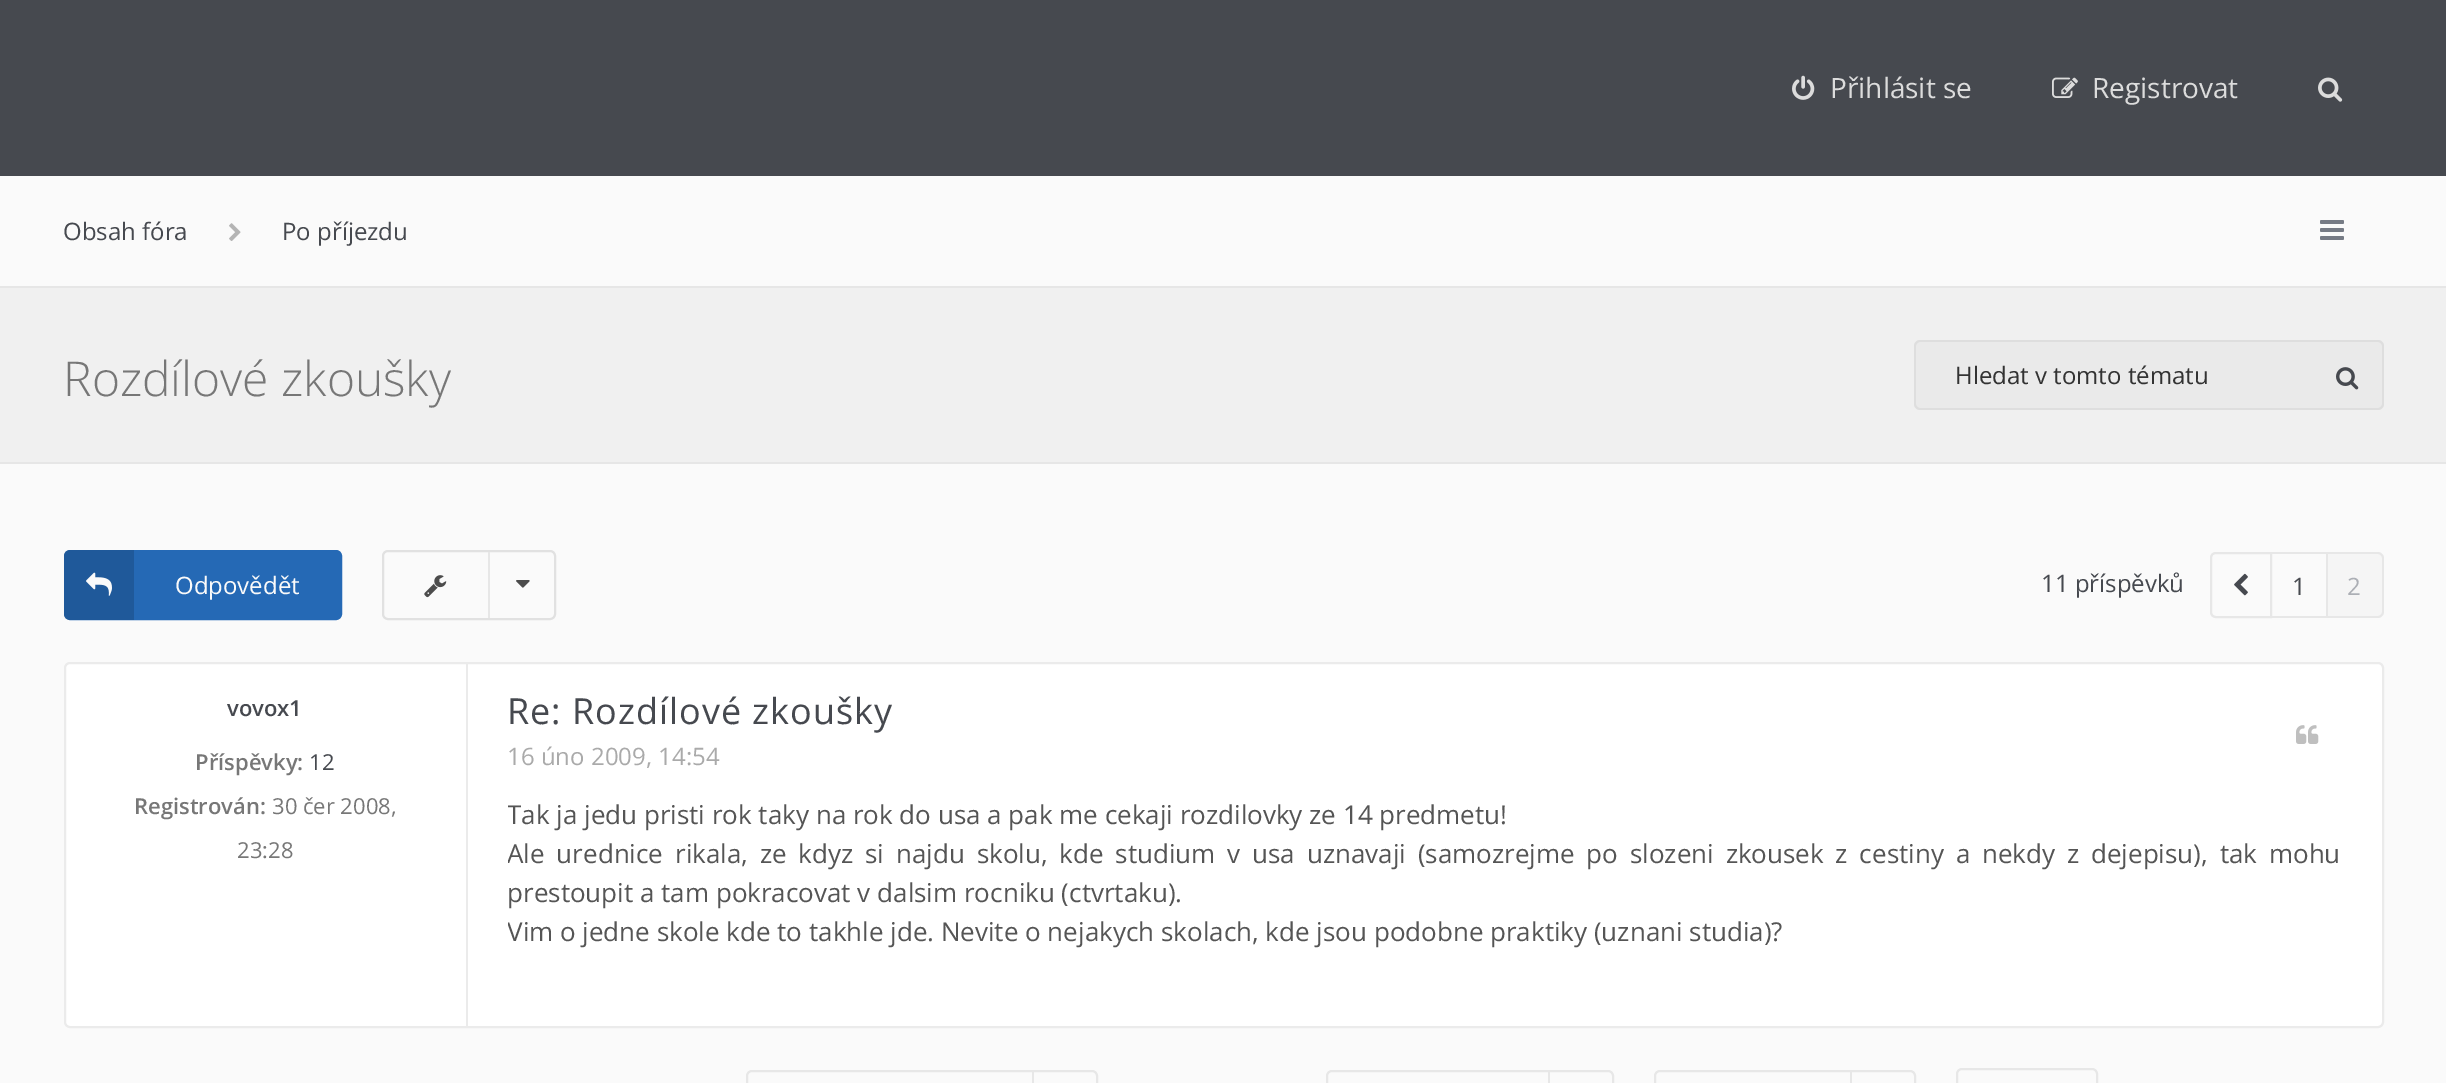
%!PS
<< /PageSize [2446 1083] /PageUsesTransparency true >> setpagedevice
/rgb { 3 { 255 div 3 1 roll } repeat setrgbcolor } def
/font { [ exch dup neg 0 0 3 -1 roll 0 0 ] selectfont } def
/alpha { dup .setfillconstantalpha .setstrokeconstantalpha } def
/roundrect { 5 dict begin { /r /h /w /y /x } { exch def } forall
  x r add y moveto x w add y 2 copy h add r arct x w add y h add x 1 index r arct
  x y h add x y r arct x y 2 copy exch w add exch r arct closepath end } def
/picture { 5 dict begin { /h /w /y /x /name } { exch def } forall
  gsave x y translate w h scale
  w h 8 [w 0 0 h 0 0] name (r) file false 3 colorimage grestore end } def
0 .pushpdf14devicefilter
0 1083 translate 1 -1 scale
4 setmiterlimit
250 250 250 rgb
0 0 2446 1083 rectfill
70 73 79 rgb
0 0 2446 176 rectfill
(img/1.rgb) 1792 75 23 25 picture
(img/2.rgb) 2052 77 26 21 picture
(img/3.rgb) 2318 77 25 25 picture
(img/4.rgb) 229 223 12 18 picture
(img/5.rgb) 2320 220 24 20 picture
[
  [0 288 2446 174 240 240 240]
  [0 286 2446 2 230 230 230]
  [0 462 2446 2 230 230 230]
] { aload pop rgb rectfill } forall
234 234 234 rgb
1920 340 moveto 2314 340 lineto 2314 410 lineto 1920 410 lineto 1916.5 410 1914 407.5 1914 404 curveto 1914 346 lineto 1914 342.5 1916.5 340 1920 340 curveto closepath fill
222 222 222 rgb
1920 340 moveto 2314 340 lineto 2314 410 lineto 1920 410 lineto 1917 410 1914 407 1914 404 curveto 1914 346 lineto 1914 343 1917 340 1920 340 curveto closepath 1920 342 moveto 2314 342 lineto 2314 408 lineto 1920 408 lineto 1918 408 1916 406 1916 404 curveto 1916 346 lineto 1916 344 1918 342 1920 342 curveto closepath eofill
234 234 234 rgb
2314 340 moveto 2378 340 lineto 2381.5 340 2384 342.5 2384 346 curveto 2384 404 lineto 2384 407.5 2381.5 410 2378 410 curveto 2314 410 lineto closepath fill
222 222 222 rgb
2314 340 moveto 2378 340 lineto 2381 340 2384 343 2384 346 curveto 2384 404 lineto 2384 407 2381 410 2378 410 curveto 2314 410 lineto closepath 2314 342 moveto 2378 342 lineto 2380 342 2382 344 2382 346 curveto 2382 404 lineto 2382 406 2380 408 2378 408 curveto 2314 408 lineto closepath eofill
(img/6.rgb) 2336 367 23 23 picture
37 105 181 rgb
65 551 276 68 5 roundrect gsave fill grestore
2 setlinewidth
stroke
0.15 alpha
0 0 0 rgb
70 550 moveto 134 550 lineto 134 620 lineto 70 620 lineto 66.5 620 64 617.5 64 614 curveto 64 556 lineto 64 552.5 66.5 550 70 550 curveto closepath fill
1 alpha
(img/7.rgb) 86 572 26 24 picture
225 225 225 rgb
383 551 172 68 5 roundrect stroke
(img/8.rgb) 424 575 23 23 picture
231 231 231 rgb
488 552 2 66 rectfill
(img/9.rgb) 516 580 14 8 picture
2216 553 moveto 2271 553 lineto 2271 617 lineto 2216 617 lineto 2213 617 2211 615 2211 612 curveto 2211 558 lineto 2211 555 2213 553 2216 553 curveto closepath stroke
(img/10.rgb) 2234 573 14 23 picture
[
  [2272 552 56 2 231 231 231]
  [2326 552 2 66 231 231 231]
  [2272 616 56 2 231 231 231]
] { aload pop rgb rectfill } forall
245 245 245 rgb
2328 554 moveto 2378 554 lineto 2380 554 2382 556 2382 558 curveto 2382 612 lineto 2382 614 2380 616 2378 616 curveto 2328 616 lineto closepath fill
231 231 231 rgb
2328 552 moveto 2378 552 lineto 2381 552 2384 555 2384 558 curveto 2384 612 lineto 2384 615 2381 618 2378 618 curveto 2328 618 lineto closepath 2328 554 moveto 2378 554 lineto 2380 554 2382 556 2382 558 curveto 2382 612 lineto 2382 614 2380 616 2378 616 curveto 2328 616 lineto closepath eofill
255 255 255 rgb
65 663 2318 364 5 roundrect gsave fill grestore
235 235 235 rgb
stroke
466 664 2 362 rectfill
(img/11.rgb) 2296 725 23 19 picture
231 231 231 rgb
747 1071 350 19 5 roundrect stroke
1032 1072 2 11 rectfill
1327 1071 286 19 5 roundrect stroke
1548 1072 2 11 rectfill
1655 1071 260 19 5 roundrect stroke
1850 1072 2 11 rectfill
1957 1069 140 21 5 roundrect stroke
/OpenSans-Regular 28 font
220 220 220 rgb
1830 98 moveto (Přihlásit se) show
2092 98 moveto (Registrovat) show
/OpenSans-Regular 24 font
70 73 79 rgb
63 240 moveto (Obsah fóra) show
282 240 moveto (Po příjezdu) show
/OpenSans-Light 48 font
119 119 119 rgb
63 396 moveto (Rozdílové zkoušky) show
/OpenSans-Regular 24 font
51 51 51 rgb
1955 384 moveto (Hledat v tomto tématu) show
250 250 250 rgb
175 594 moveto (Odpovědět) show
70 73 79 rgb
2041 592 moveto (11 příspěvků) show
2292 595 moveto (1) show
172 175 181 rgb
2347 595 moveto (2) show
/OpenSans-SemiBold 22 font
70 73 79 rgb
227 716 moveto (vovox1) show
119 119 119 rgb
195 770 moveto (Příspěvky:) show
/OpenSans-Regular 22 font
70 73 79 rgb
309 770 moveto (12) show
/OpenSans-SemiBold 22 font
119 119 119 rgb
134 814 moveto (Registrován:) show
/OpenSans-Regular 22 font
272 814 moveto (30 čer 2008,) show
237 858 moveto (23:28) show
/OpenSans-Regular 36 font
70 73 79 rgb
507 724 moveto 1 0 (Re: Rozdílové zkoušky) ashow
/OpenSans-Regular 24 font
170 170 170 rgb
507 765 moveto (16 úno 2009, 14:54) show
gsave
508 796 1834 200 rectclip
/OpenSans-Regular 26 font
85 85 85 rgb
507 824 moveto (Tak ja jedu pristi rok taky na rok do usa a pak me cekaji rozdilovky ze 14 predmetu!) show
507 863 moveto 5.1 0 32 (Ale urednice rikala, ze kdyz si najdu skolu, kde studium v usa uznavaji \(samozrejme po slozeni zkousek z cestiny a nekdy z dejepisu\), tak mohu) widthshow
grestore
/OpenSans-Regular 26 font
85 85 85 rgb
507 902 moveto (prestoupit a tam pokracovat v dalsim rocniku \(ctvrtaku\).) show
gsave
508 796 1834 200 rectclip
507 941 moveto (Vim o jedne skole kde to takhle jde. Nevite o nejakych skolach, kde jsou podobne praktiky \(uznani studia\)?) show
grestore
.poppdf14devicefilter showpage
